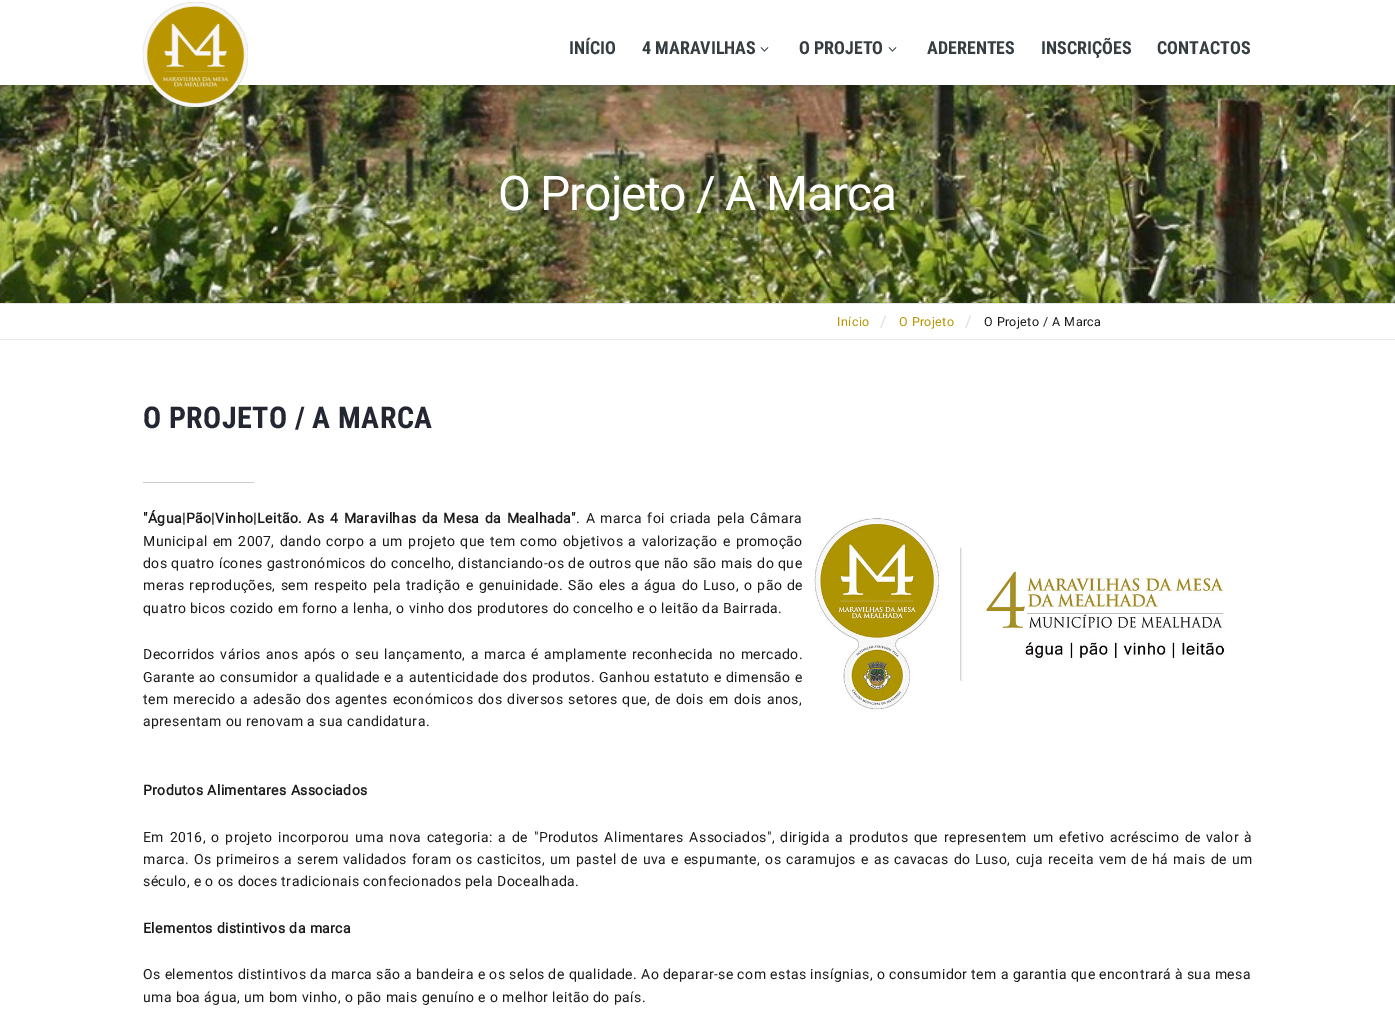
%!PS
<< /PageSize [1395 1019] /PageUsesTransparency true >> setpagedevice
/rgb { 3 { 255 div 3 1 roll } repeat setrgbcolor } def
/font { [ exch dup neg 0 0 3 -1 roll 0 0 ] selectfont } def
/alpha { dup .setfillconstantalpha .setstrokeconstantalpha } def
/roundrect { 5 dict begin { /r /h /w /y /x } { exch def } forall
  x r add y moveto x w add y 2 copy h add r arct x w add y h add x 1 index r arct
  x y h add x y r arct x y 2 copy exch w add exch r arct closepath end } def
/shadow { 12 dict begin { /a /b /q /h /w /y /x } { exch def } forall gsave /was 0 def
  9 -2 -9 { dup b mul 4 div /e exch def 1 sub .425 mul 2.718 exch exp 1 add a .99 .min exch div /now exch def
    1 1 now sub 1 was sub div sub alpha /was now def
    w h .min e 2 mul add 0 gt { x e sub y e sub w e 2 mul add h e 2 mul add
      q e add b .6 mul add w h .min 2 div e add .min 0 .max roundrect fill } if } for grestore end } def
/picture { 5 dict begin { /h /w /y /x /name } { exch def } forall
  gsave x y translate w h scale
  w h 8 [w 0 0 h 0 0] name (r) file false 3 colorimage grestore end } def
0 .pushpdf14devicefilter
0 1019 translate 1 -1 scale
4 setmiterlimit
255 255 255 rgb
0 0 1395 1019 rectfill
(img/4.rgb) 0 85 1395 218 picture
0 0 0 rgb
-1 1 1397 87 0 5 0.1 shadow
(img/1.rgb) 152 85 87 22 picture
-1 1 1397 87 0 5 0.1 shadow
255 255 255 rgb
0 0 1395 85 rectfill
(img/2.rgb) 142 2 106 105 picture
(img/3.rgb) 760 47 9 5 picture
(img/3.rgb) 888 47 9 5 picture
[
  [0 303 1395 1 232 232 232]
  [0 339 1395 1 232 232 232]
  [143 482 111 1 204 204 204]
] { aload pop rgb rectfill } forall
(img/5.rgb) 814 518 412 192 picture
/RobotoCondensed-Bold 18 font
54 61 65 rgb
[
  [(INÍCIO) 569 54]
  [(4 MARAVILHAS) 642 54]
  [(O PROJETO) 799 54]
  [(ADERENTES) 927 54]
  [(INSCRIÇÕES) 1041 54]
  [(CONTACTOS) 1157 54]
] { aload pop moveto show } forall
/Roboto-Regular 48 font
255 255 255 rgb
498 210 moveto -1.25 0 (O Projeto / A Marca) ashow
/Roboto-Regular 12.5 font
185 149 0 rgb
837 326 moveto 0.42 0 (Início) ashow
/Roboto-Regular 16 font
221 221 221 rgb
880 327 moveto 0.42 0 (/) ashow
/Roboto-Regular 12.5 font
185 149 0 rgb
899 326 moveto 0.42 0 (O Projeto) ashow
/Roboto-Regular 16 font
221 221 221 rgb
965 327 moveto 0.42 0 (/) ashow
/Roboto-Regular 12.5 font
26 26 26 rgb
984 326 moveto 0.42 0 (O Projeto / A Marca) ashow
/RobotoCondensed-Bold 30 font
36 39 49 rgb
143 428 moveto 0.42 0 (O PROJETO / A MARCA) ashow
/Roboto-Bold 14 font
26 26 26 rgb
143 523 moveto 1.5 0 32 0.42 0 ("Água|Pão|Vinho|Leitão. As 4 Maravilhas da Mesa da Mealhada") awidthshow
/Roboto-Regular 14 font
576 523 moveto 1.5 0 32 0.42 0 (. A marca foi criada pela Câmara) awidthshow
143 546 moveto 1.25 0 32 0.42 0 (Municipal em 2007, dando corpo a um projeto que tem como objetivos a valorização e promoção) awidthshow
143 568 moveto 0.25 0 32 0.42 0 (dos quatro ícones gastronómicos do concelho, distanciando-os de outros que não são mais do que) awidthshow
143 590 moveto 1.2 0 32 0.42 0 (meras reproduções, sem respeito pela tradição e genuinidade. São eles a água do Luso, o pão de) awidthshow
143 613 moveto 0.42 0 (quatro bicos cozido em forno a lenha, o vinho dos produtores do concelho e o leitão da Bairrada.) ashow
143 659 moveto 1.5 0 32 0.42 0 (Decorridos vários anos após o seu lançamento, a marca é amplamente reconhecida no mercado.) awidthshow
143 682 moveto 0.4 0 32 0.42 0 (Garante ao consumidor a qualidade e a autenticidade dos produtos. Ganhou estatuto e dimensão e) awidthshow
143 704 moveto 0.9 0 32 0.42 0 (tem merecido a adesão dos agentes económicos dos diversos setores que, de dois em dois anos,) awidthshow
143 726 moveto 0.42 0 (apresentam ou renovam a sua candidatura.) ashow
/Roboto-Bold 14 font
143 795 moveto 0.42 0 (Produtos Alimentares Associados) ashow
/Roboto-Regular 14 font
143 842 moveto 1.65 0 32 0.42 0 (Em 2016, o projeto incorporou uma nova categoria: a de "Produtos Alimentares Associados", dirigida a produtos que representem um efetivo acréscimo de valor à) awidthshow
143 864 moveto 1.05 0 32 0.42 0 (marca. Os primeiros a serem validados foram os casticitos, um pastel de uva e espumante, os caramujos e as cavacas do Luso, cuja receita vem de há mais de um) awidthshow
143 886 moveto 0.42 0 (século, e o os doces tradicionais confecionados pela Docealhada.) ashow
/Roboto-Bold 14 font
143 933 moveto 0.42 0 (Elementos distintivos da marca) ashow
/Roboto-Regular 14 font
143 979 moveto 0.42 0 (Os elementos distintivos da marca são a bandeira e os selos de qualidade. Ao deparar-se com estas insígnias, o consumidor tem a garantia que encontrará à sua mesa) ashow
143 1002 moveto 0.42 0 (uma boa água, um bom vinho, o pão mais genuíno e o melhor leitão do país.) ashow
.poppdf14devicefilter showpage
